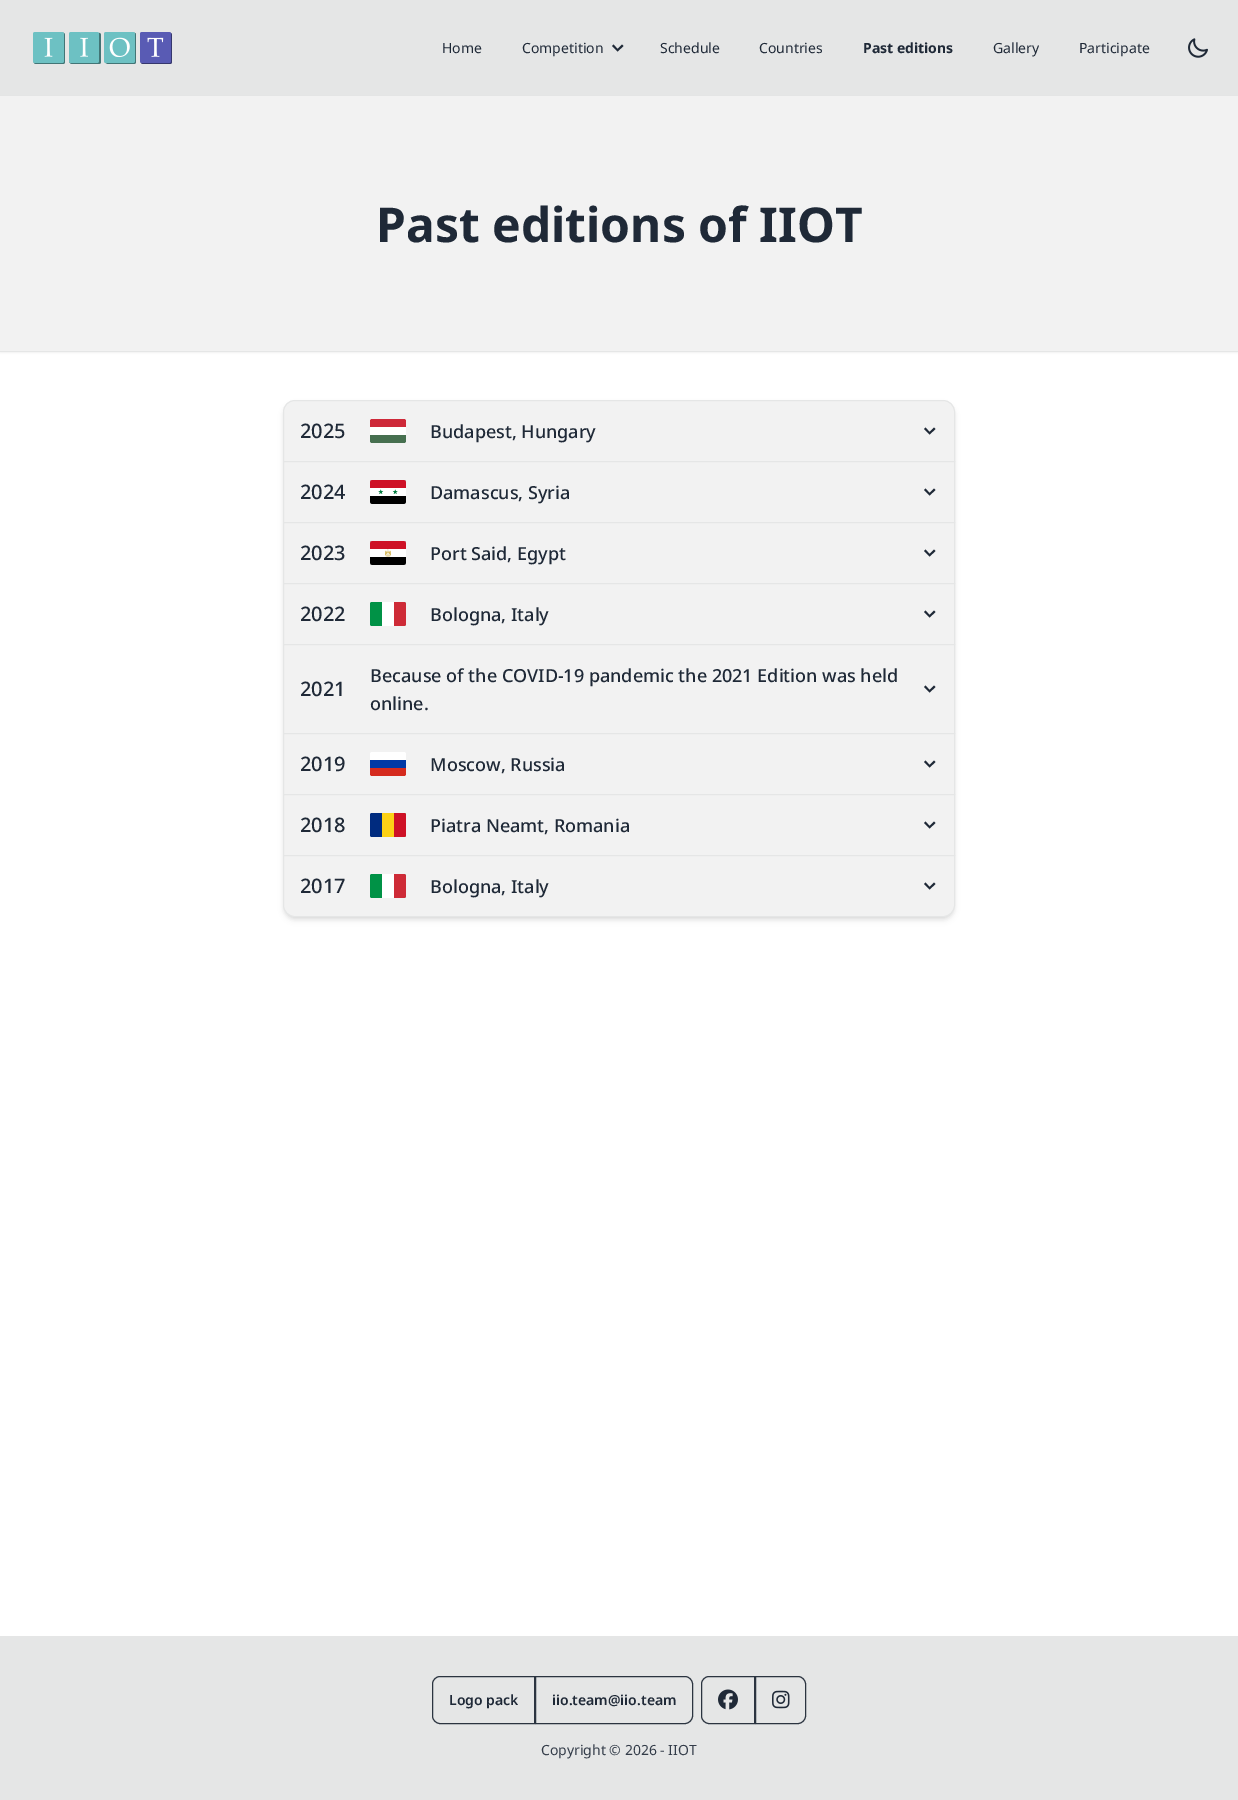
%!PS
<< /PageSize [1238 1800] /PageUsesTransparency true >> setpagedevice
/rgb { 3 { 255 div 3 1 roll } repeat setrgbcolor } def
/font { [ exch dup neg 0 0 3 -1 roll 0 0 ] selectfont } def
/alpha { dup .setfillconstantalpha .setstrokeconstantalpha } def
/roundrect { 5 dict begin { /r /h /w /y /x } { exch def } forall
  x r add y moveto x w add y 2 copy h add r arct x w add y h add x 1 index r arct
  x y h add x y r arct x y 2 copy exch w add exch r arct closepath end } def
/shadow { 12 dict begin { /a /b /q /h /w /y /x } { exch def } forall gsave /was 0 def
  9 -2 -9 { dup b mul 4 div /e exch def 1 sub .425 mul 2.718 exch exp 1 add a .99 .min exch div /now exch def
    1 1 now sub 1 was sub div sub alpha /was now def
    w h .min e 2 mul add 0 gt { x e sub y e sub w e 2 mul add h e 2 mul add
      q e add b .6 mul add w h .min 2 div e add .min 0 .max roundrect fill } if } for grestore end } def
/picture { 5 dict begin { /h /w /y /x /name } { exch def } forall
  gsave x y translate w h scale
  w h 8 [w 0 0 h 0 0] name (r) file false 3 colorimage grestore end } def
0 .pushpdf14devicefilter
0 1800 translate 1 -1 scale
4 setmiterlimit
229 230 230 rgb
0 0 1238 1800 rectfill
(img/1.rgb) 33 32 139 32 picture
31 41 55 rgb
613.5 44.5 moveto 612 46 lineto 617.5 51.5 lineto 623.5 46 lineto 622 44.5 lineto 617.5 49 lineto closepath fill
(img/2.rgb) 1188 38 20 20 picture
255 255 255 rgb
0 352 1238 1284 rectfill
0 0 0 rgb
0 97 1238 256 0 1 0.05 shadow
242 242 242 rgb
0 96 1238 255 rectfill
229 230 230 rgb
0 351 1238 1 rectfill
0 0 0 rgb
285 404 668 513 10 2 0.1 shadow
284 405 670 515 11 3 0.1 shadow
242 242 242 rgb
295 400.5 moveto 943 400.5 lineto 949.5 400.5 954.5 405.5 954.5 412 curveto 954.5 461.5 lineto 283.5 461.5 lineto 283.5 412 lineto 283.5 405.5 288.5 400.5 295 400.5 curveto closepath gsave fill grestore
229 230 230 rgb
stroke
206 41 57 rgb
372 419 moveto 404 419 lineto 405 419 406 420 406 421 curveto 406 427 lineto 370 427 lineto 370 421 lineto 370 420 371 419 372 419 curveto closepath fill
255 255 255 rgb
370 427 36 8 rectfill
71 112 80 rgb
370 435 moveto 406 435 lineto 406 441 lineto 406 442 405 443 404 443 curveto 372 443 lineto 371 443 370 442 370 441 curveto closepath fill
31 41 55 rgb
925.5 427.5 moveto 924 429 lineto 929.5 434.5 lineto 935.5 429 lineto 934 427.5 lineto 929.5 432 lineto closepath fill
242 242 242 rgb
283.5 461.5 moveto 954.5 461.5 lineto 954.5 522.5 lineto 283.5 522.5 lineto closepath gsave fill grestore
229 230 230 rgb
stroke
(img/3.rgb) 370 480 36 24 picture
31 41 55 rgb
925.5 488.5 moveto 924 490 lineto 929.5 495.5 lineto 935.5 490 lineto 934 488.5 lineto 929.5 493 lineto closepath fill
242 242 242 rgb
283.5 522.5 moveto 954.5 522.5 lineto 954.5 583.5 lineto 283.5 583.5 lineto closepath gsave fill grestore
229 230 230 rgb
stroke
(img/4.rgb) 370 541 36 24 picture
31 41 55 rgb
925.5 549.5 moveto 924 551 lineto 929.5 556.5 lineto 935.5 551 lineto 934 549.5 lineto 929.5 554 lineto closepath fill
242 242 242 rgb
283.5 583.5 moveto 954.5 583.5 lineto 954.5 644.5 lineto 283.5 644.5 lineto closepath gsave fill grestore
229 230 230 rgb
stroke
0 146 70 rgb
370 602 36 24 2 roundrect fill
255 255 255 rgb
382 602 moveto 404 602 lineto 405 602 406 603 406 604 curveto 406 624 lineto 406 625 405 626 404 626 curveto 382 626 lineto closepath fill
206 43 55 rgb
394 602 moveto 404 602 lineto 405 602 406 603 406 604 curveto 406 624 lineto 406 625 405 626 404 626 curveto 394 626 lineto closepath fill
31 41 55 rgb
925.5 610.5 moveto 924 612 lineto 929.5 617.5 lineto 935.5 612 lineto 934 610.5 lineto 929.5 615 lineto closepath fill
242 242 242 rgb
283.5 644.5 moveto 954.5 644.5 lineto 954.5 733.5 lineto 283.5 733.5 lineto closepath gsave fill grestore
229 230 230 rgb
stroke
31 41 55 rgb
925.5 685.5 moveto 924 687 lineto 929.5 692.5 lineto 935.5 687 lineto 934 685.5 lineto 929.5 690 lineto closepath fill
242 242 242 rgb
283.5 733.5 moveto 954.5 733.5 lineto 954.5 794.5 lineto 283.5 794.5 lineto closepath gsave fill grestore
229 230 230 rgb
stroke
255 255 255 rgb
372 752 moveto 404 752 lineto 405 752 406 753 406 754 curveto 406 764 lineto 370 764 lineto 370 754 lineto 370 753 371 752 372 752 curveto closepath fill
213 43 30 rgb
370 764 moveto 406 764 lineto 406 774 lineto 406 775 405 776 404 776 curveto 372 776 lineto 371 776 370 775 370 774 curveto closepath fill
0 57 166 rgb
370 760 36 8 rectfill
31 41 55 rgb
925.5 760.5 moveto 924 762 lineto 929.5 767.5 lineto 935.5 762 lineto 934 760.5 lineto 929.5 765 lineto closepath fill
242 242 242 rgb
283.5 794.5 moveto 954.5 794.5 lineto 954.5 855.5 lineto 283.5 855.5 lineto closepath gsave fill grestore
229 230 230 rgb
stroke
0 43 127 rgb
370 813 36 24 2 roundrect fill
252 209 22 rgb
382 813 moveto 404 813 lineto 405 813 406 814 406 815 curveto 406 835 lineto 406 836 405 837 404 837 curveto 382 837 lineto closepath fill
206 17 38 rgb
394 813 moveto 404 813 lineto 405 813 406 814 406 815 curveto 406 835 lineto 406 836 405 837 404 837 curveto 394 837 lineto closepath fill
31 41 55 rgb
925.5 821.5 moveto 924 823 lineto 929.5 828.5 lineto 935.5 823 lineto 934 821.5 lineto 929.5 826 lineto closepath fill
242 242 242 rgb
283.5 855.5 moveto 954.5 855.5 lineto 954.5 905 lineto 954.5 911.5 949.5 916.5 943 916.5 curveto 295 916.5 lineto 288.5 916.5 283.5 911.5 283.5 905 curveto closepath gsave fill grestore
229 230 230 rgb
stroke
0 146 70 rgb
370 874 36 24 2 roundrect fill
255 255 255 rgb
382 874 moveto 404 874 lineto 405 874 406 875 406 876 curveto 406 896 lineto 406 897 405 898 404 898 curveto 382 898 lineto closepath fill
206 43 55 rgb
394 874 moveto 404 874 lineto 405 874 406 875 406 876 curveto 406 896 lineto 406 897 405 898 404 898 curveto 394 898 lineto closepath fill
31 41 55 rgb
925.5 882.5 moveto 924 884 lineto 929.5 889.5 lineto 935.5 884 lineto 934 882.5 lineto 929.5 887 lineto closepath fill
43 52 64 rgb
440 1676.5 moveto 534.5 1676.5 lineto 534.5 1723.5 lineto 440 1723.5 lineto 436 1723.5 432.5 1720 432.5 1716 curveto 432.5 1684 lineto 432.5 1680 436 1676.5 440 1676.5 curveto closepath stroke
535.5 1676.5 moveto 685 1676.5 lineto 689 1676.5 692.5 1680 692.5 1684 curveto 692.5 1716 lineto 692.5 1720 689 1723.5 685 1723.5 curveto 535.5 1723.5 lineto closepath stroke
709 1676.5 moveto 754.5 1676.5 lineto 754.5 1723.5 lineto 709 1723.5 lineto 705 1723.5 701.5 1720 701.5 1716 curveto 701.5 1684 lineto 701.5 1680 705 1676.5 709 1676.5 curveto closepath stroke
(img/5.rgb) 718 1689 20 21 picture
755.5 1676.5 moveto 798 1676.5 lineto 802 1676.5 805.5 1680 805.5 1684 curveto 805.5 1716 lineto 805.5 1720 802 1723.5 798 1723.5 curveto 755.5 1723.5 lineto closepath stroke
(img/6.rgb) 772 1690 18 19 picture
/NotoSans-Regular 14 font
31 41 55 rgb
[
  [(Home) 442 53]
  [(Competition) 522 53]
  [(Schedule) 660 53]
  [(Countries) 759 53]
] { aload pop moveto show } forall
/NotoSans-Bold 14 font
863 53 moveto (Past editions) show
/NotoSans-Regular 14 font
993 53 moveto (Gallery) show
1079 53 moveto (Participate) show
/NotoSans-Bold 48 font
376 242 moveto (Past editions of IIOT) show
/NotoSans-Medium 20 font
300 438 moveto (2025) show
/NotoSans-Medium 18 font
430 438 moveto (Budapest, Hungary) show
/NotoSans-Medium 20 font
300 499 moveto (2024) show
/NotoSans-Medium 18 font
430 499 moveto (Damascus, Syria) show
/NotoSans-Medium 20 font
300 560 moveto (2023) show
/NotoSans-Medium 18 font
430 560 moveto (Port Said, Egypt) show
/NotoSans-Medium 20 font
300 621 moveto (2022) show
/NotoSans-Medium 18 font
430 621 moveto (Bologna, Italy) show
/NotoSans-Medium 20 font
300 696 moveto (2021) show
/NotoSans-Medium 18 font
370 682 moveto (Because of the COVID-19 pandemic the 2021 Edition was held) show
370 710 moveto (online.) show
/NotoSans-Medium 20 font
300 771 moveto (2019) show
/NotoSans-Medium 18 font
430 771 moveto (Moscow, Russia) show
/NotoSans-Medium 20 font
300 832 moveto (2018) show
/NotoSans-Medium 18 font
430 832 moveto (Piatra Neamt, Romania) show
/NotoSans-Medium 20 font
300 893 moveto (2017) show
/NotoSans-Medium 18 font
430 893 moveto (Bologna, Italy) show
/NotoSans-SemiBold 14 font
449 1705 moveto (Logo pack) show
552 1705 moveto (iio.team@iio.team) show
/NotoSans-Regular 14 font
51 60 73 rgb
541 1755 moveto (Copyright © 2026 - IIOT) show
.poppdf14devicefilter showpage
